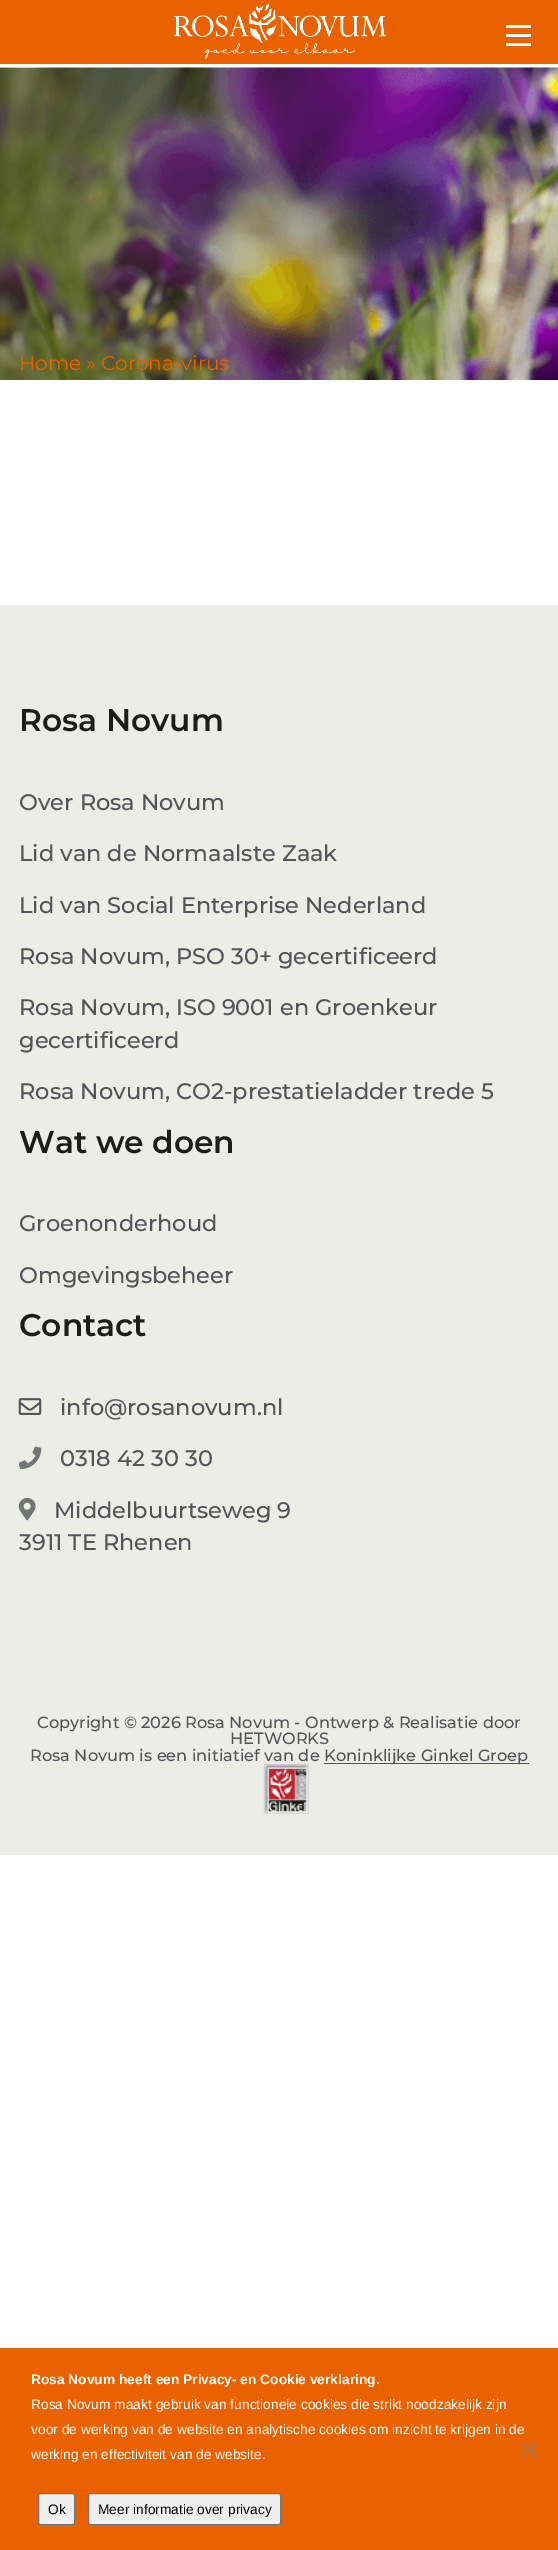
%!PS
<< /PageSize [558 2550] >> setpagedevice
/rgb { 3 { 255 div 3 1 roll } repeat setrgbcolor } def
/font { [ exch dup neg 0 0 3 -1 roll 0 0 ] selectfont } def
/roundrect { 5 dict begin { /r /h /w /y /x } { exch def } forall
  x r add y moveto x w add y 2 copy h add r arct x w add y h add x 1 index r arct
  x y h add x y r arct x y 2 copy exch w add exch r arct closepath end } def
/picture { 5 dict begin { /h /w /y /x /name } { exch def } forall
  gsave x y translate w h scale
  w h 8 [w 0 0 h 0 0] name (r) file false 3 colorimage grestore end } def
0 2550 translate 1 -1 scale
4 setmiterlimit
255 255 255 rgb
0 0 558 2550 rectfill
234 97 2 rgb
0 0 558 64 rectfill
(img/1.rgb) 173 3 214 56 picture
[
  [506 25 25 3 255 255 255]
  [506 34 25 3 255 255 255]
  [506 43 25 3 255 255 255]
] { aload pop rgb rectfill } forall
(img/2.rgb) 0 67 558 313 picture
236 237 230 rgb
0 605 558 1250 rectfill
(img/3.rgb) 18 1398 24 17 picture
(img/4.rgb) 18 1446 24 23 picture
(img/5.rgb) 18 1497 18 24 picture
83 83 90 rgb
324 1763 205 1 rectfill
(img/6.rgb) 263 1763 46 51 picture
234 97 2 rgb
0 2348 558 202 rectfill
181 113 65 rgb
534.5 2442 moveto 536.5 2443.5 lineto 523 2457 lineto 521 2455 lineto closepath fill
521 2443.5 moveto 523 2442 lineto 536.5 2455 lineto 534.5 2457 lineto closepath fill
239 239 239 rgb
38.5 2493.5 36 31 2 roundrect gsave fill grestore
118 118 118 rgb
stroke
239 239 239 rgb
88.5 2493.5 192 31 2 roundrect gsave fill grestore
118 118 118 rgb
stroke
/Montserrat-Regular 20 font
234 97 2 rgb
19 370 moveto (Home » Corona-virus) show
/Montserrat-SemiBold 31.25 font
28 28 26 rgb
19 731 moveto (Rosa Novum) show
/Montserrat-Medium 22.5 font
83 83 90 rgb
[
  [(Over Rosa Novum) 19 810]
  [(Lid van de Normaalste Zaak) 19 861]
  [(Lid van Social Enterprise Nederland) 19 913]
  [(Rosa Novum, PSO 30+ gecertificeerd) 19 964]
  [(Rosa Novum, ISO 9001 en Groenkeur) 19 1015]
  [(gecertificeerd) 19 1048]
  [(Rosa Novum, CO2-prestatieladder trede 5) 19 1099]
] { aload pop moveto show } forall
/Montserrat-SemiBold 31.25 font
28 28 26 rgb
19 1153 moveto (Wat we doen) show
/Montserrat-Medium 22.5 font
83 83 90 rgb
19 1231 moveto (Groenonderhoud) show
19 1283 moveto (Omgevingsbeheer) show
/Montserrat-SemiBold 31.25 font
28 28 26 rgb
19 1336 moveto (Contact) show
/Montserrat-Medium 22.5 font
83 83 90 rgb
[
  [(info@rosanovum.nl) 60 1415]
  [(0318 42 30 30) 60 1466]
  [(Middelbuurtseweg 9) 54 1518]
  [(3911 TE Rhenen) 19 1550]
] { aload pop moveto show } forall
/Montserrat-Medium 16.25 font
[
  [(Copyright © 2026 Rosa Novum - Ontwerp & Realisatie door) 37 1728]
  [(HETWORKS) 230 1744]
  [(Rosa Novum is een initiatief van de) 30 1761]
  [(Koninklijke Ginkel Groep) 324 1761]
] { aload pop moveto show } forall
/LiberationSans-Bold 13.75 font
255 255 255 rgb
31 2384 moveto (Rosa Novum heeft een Privacy- en Cookie verklaring.) show
/LiberationSans-Regular 13.75 font
[
  [(Rosa Novum maakt gebruik van functionele cookies die strikt noodzakelijk zijn) 31 2409]
  [(voor de werking van de website en analytische cookies om inzicht te krijgen in de) 31 2434]
  [(werking en effectiviteit van de website.) 31 2459]
] { aload pop moveto show } forall
0 0 0 rgb
48 2514 moveto (Ok) show
98 2514 moveto (Meer informatie over privacy) show
showpage
